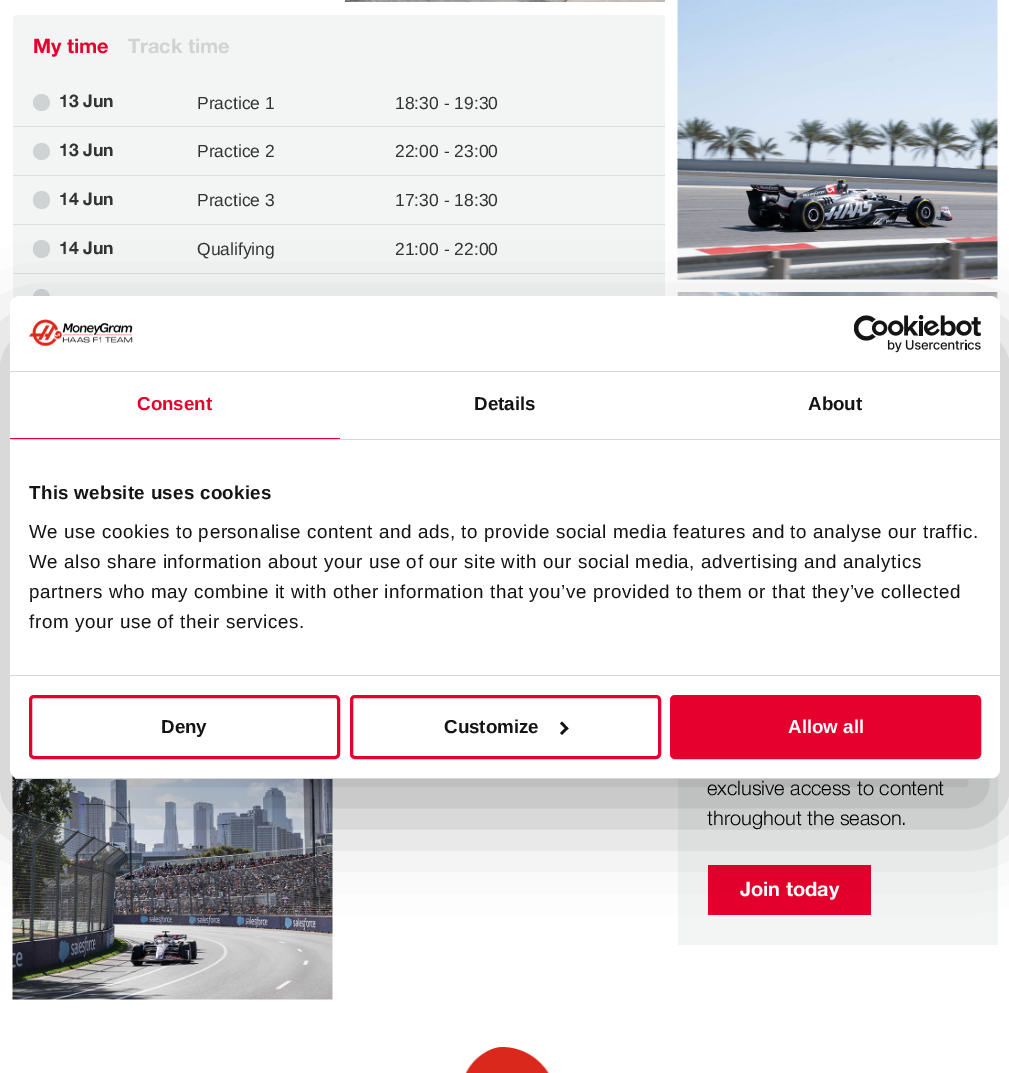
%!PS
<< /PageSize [1009 1073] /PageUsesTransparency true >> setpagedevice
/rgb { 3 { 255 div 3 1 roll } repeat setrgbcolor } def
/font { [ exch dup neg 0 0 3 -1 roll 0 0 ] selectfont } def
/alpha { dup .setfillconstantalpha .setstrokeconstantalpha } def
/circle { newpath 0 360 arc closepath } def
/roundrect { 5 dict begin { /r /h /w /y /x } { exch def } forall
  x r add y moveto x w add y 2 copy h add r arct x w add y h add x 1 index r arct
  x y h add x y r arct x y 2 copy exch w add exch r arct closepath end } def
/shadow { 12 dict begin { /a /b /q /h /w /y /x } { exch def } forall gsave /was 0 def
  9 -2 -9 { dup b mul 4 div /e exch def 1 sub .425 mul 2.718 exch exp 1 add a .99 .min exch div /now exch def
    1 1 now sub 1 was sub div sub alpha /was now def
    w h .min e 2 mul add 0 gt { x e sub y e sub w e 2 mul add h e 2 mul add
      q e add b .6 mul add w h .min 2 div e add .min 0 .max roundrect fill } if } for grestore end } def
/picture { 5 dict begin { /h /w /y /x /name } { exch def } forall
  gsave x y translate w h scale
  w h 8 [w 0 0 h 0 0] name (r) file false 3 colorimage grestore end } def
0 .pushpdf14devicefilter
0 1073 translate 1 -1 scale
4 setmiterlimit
255 255 255 rgb
0 0 1009 1073 rectfill
243 244 244 rgb
13 15 652 653 4 roundrect fill
220 222 223 rgb
13 126 652 1 rectfill
208 211 212 rgb
41.5 102.5 8.5 circle fill
220 222 223 rgb
13 175 652 1 rectfill
208 211 212 rgb
41.5 151.5 8.5 circle fill
220 222 223 rgb
13 224 652 1 rectfill
208 211 212 rgb
33 191 17 18 8.5 roundrect fill
220 222 223 rgb
13 273 652 1 rectfill
208 211 212 rgb
33 240 17 18 8.5 roundrect fill
41.5 297.5 8.5 circle fill
(img/1.rgb) 345 0 320 2 picture
(img/2.rgb) 677 0 321 280 picture
(img/3.rgb) 677 292 321 8 picture
(img/4.rgb) 12 775 321 225 picture
243 244 244 rgb
678 775 320 170 rectfill
230 0 45 rgb
708 865 163 50 rectfill
(img/5.rgb) 465 1047 84 26 picture
0 0 0 rgb
10 336 990 483 10 42.5 0.3 shadow
255 255 255 rgb
10 296 990 483 10 roundrect fill
214 214 214 rgb
10 371 990 1 rectfill
(img/6.rgb) 29 319 104 28 picture
(img/7.rgb) 854 315 127 38 picture
[
  [10 439 990 1 214 214 214]
  [10 438 330 1 230 0 45]
  [10 675 990 1 214 214 214]
] { aload pop rgb rectfill } forall
gsave
10 296 990 483 10 roundrect clip newpath
10 778 990 1 rectfill
grestore
230 0 45 rgb
3 setlinewidth
30.5 696.5 308 61 3.5 roundrect stroke
351.5 696.5 308 61 3.5 roundrect stroke
20 20 20 rgb
562 721.5 moveto 568.5 728.5 lineto 566.5 730 lineto 560 723.5 lineto closepath fill
566.5 726.5 moveto 568.5 728.5 lineto 562 735 lineto 560 733 lineto closepath fill
230 0 45 rgb
671.5 696.5 308 61 3.5 roundrect gsave fill grestore
stroke
/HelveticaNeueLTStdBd-Regular 20 font
33 53 moveto (My time) show
208 211 212 rgb
128 53 moveto (Track time) show
/HelveticaNeueLTStdBd-Regular 17.5 font
51 51 51 rgb
59 107 moveto (13 Jun) show
/LiberationSans-Regular 17.5 font
197 109 moveto (Practice 1) show
395 109 moveto (18:30 - 19:30) show
/HelveticaNeueLTStdBd-Regular 17.5 font
59 156 moveto (13 Jun) show
/LiberationSans-Regular 17.5 font
197 157 moveto (Practice 2) show
395 157 moveto (22:00 - 23:00) show
/HelveticaNeueLTStdBd-Regular 17.5 font
59 205 moveto (14 Jun) show
/LiberationSans-Regular 17.5 font
197 206 moveto (Practice 3) show
395 206 moveto (17:30 - 18:30) show
/HelveticaNeueLTStdBd-Regular 17.5 font
59 254 moveto (14 Jun) show
/LiberationSans-Regular 17.5 font
197 255 moveto (Qualifying) show
395 255 moveto (21:00 - 22:00) show
/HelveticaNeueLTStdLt-Regular 20 font
0 0 0 rgb
707 795 moveto (exclusive access to content) show
707 825 moveto (throughout the season.) show
/HelveticaNeueLTStdBd-Regular 20 font
255 255 255 rgb
740 896 moveto (Join today) show
/LiberationSans-Bold 18.75 font
230 0 45 rgb
137 410 moveto (Consent) show
20 20 20 rgb
474 410 moveto (Details) show
808 410 moveto (About) show
29 499 moveto 0.3 0 (This website uses cookies) ashow
/LiberationSans-Regular 18.75 font
29 538 moveto 0.62 0 (We use cookies to personalise content and ads, to provide social media features and to analyse our traffic.) ashow
29 568 moveto 0.62 0 (We also share information about your use of our site with our social media, advertising and analytics) ashow
29 598 moveto 0.62 0 (partners who may combine it with other information that you’ve provided to them or that they’ve collected) ashow
29 628 moveto 0.62 0 (from your use of their services.) ashow
/LiberationSans-Bold 18.75 font
161 733 moveto (Deny) show
444 733 moveto (Customize) show
255 255 255 rgb
788 733 moveto (Allow all) show
.poppdf14devicefilter showpage
